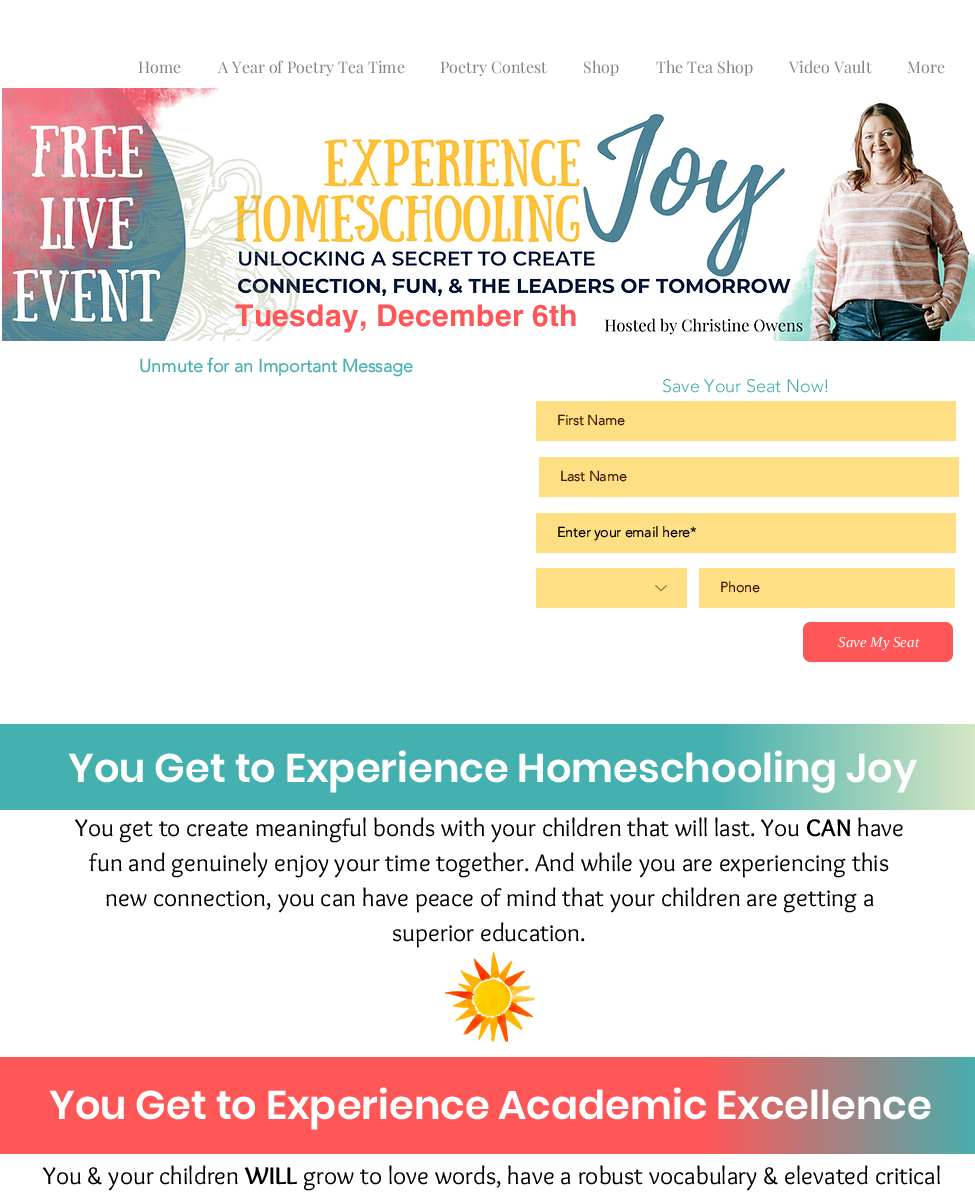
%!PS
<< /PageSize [975 1193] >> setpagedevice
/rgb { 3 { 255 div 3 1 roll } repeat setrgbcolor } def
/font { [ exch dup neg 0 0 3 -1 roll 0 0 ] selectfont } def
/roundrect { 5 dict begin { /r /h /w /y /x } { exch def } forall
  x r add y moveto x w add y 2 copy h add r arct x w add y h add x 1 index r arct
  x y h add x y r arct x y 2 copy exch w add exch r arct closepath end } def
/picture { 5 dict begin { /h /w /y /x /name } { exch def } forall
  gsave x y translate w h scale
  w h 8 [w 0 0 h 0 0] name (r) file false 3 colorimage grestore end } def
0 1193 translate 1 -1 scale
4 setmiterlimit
255 255 255 rgb
0 0 975 1193 rectfill
(img/1.rgb) 2 88 973 253 picture
[
  [536 401 420 40 255 223 131]
  [539 457 420 40 255 223 131]
  [536 513 420 40 255 223 131]
  [536 568 151 40 255 223 131]
] { aload pop rgb rectfill } forall
(img/2.rgb) 655 585 12 7 picture
699 568 256 40 rectfill
255 87 87 rgb
803 622 150 40 8 roundrect fill
gsave 0 724 moveto 975 724 lineto 975 810 lineto 0 810 lineto closepath clip newpath
<< /ShadingType 2 /ColorSpace /DeviceRGB /Coords [0 767 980 767] /Extend [true true] /Function << /FunctionType 3 /Domain [0 1] /Functions [<< /FunctionType 2 /Domain [0 1] /C0 [0.271 0.69 0.69] /C1 [0.271 0.69 0.69] /N 1 >> << /FunctionType 2 /Domain [0 1] /C0 [0.271 0.69 0.69] /C1 [0.847 0.91 0.765] /N 1 >>] /Bounds [0.73] /Encode [0 1 0 1] >> >> shfill grestore
(img/3.rgb) 445 952 90 91 picture
gsave 0 1057 moveto 975 1057 lineto 975 1154 lineto 0 1154 lineto closepath clip newpath
<< /ShadingType 2 /ColorSpace /DeviceRGB /Coords [0 1106 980 1106] /Extend [true true] /Function << /FunctionType 3 /Domain [0 1] /Functions [<< /FunctionType 2 /Domain [0 1] /C0 [1 0.341 0.341] /C1 [1 0.341 0.341] /N 1 >> << /FunctionType 2 /Domain [0 1] /C0 [1 0.341 0.341] /C1 [0.271 0.69 0.69] /N 1 >>] /Bounds [0.72] /Encode [0 1 0 1] >> >> shfill grestore
/PlayfairDisplay-Regular 16 font
133 133 133 rgb
[
  [(Home) 138 73]
  [(A Year of Poetry Tea Time) 218 73]
  [(Poetry Contest) 440 73]
  [(Shop) 583 73]
  [(The Tea Shop) 656 73]
  [(Video Vault) 789 73]
  [(More) 907 73]
] { aload pop moveto show } forall
/helvetica-Bold 30 font
255 87 87 rgb
235 326 moveto 0.3 0 (Tuesday, December 6th) ashow
/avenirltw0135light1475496-Bold 18 font
69 176 176 rgb
139 372 moveto (Unmute for an Important Message) show
/avenirltw0135light1475496-Light 18 font
662 392 moveto (Save Your Seat Now!) show
/avenirltw0135light1475496-Bold 14 font
69 22 4 rgb
557 425 moveto (First Name) show
560 481 moveto (Last Name) show
0 0 0 rgb
557 537 moveto (Enter your email here*) show
69 22 4 rgb
720 592 moveto (Phone) show
/LiberationSerif-Italic 15 font
255 255 255 rgb
838 647 moveto (Save My Seat) show
/Poppins-SemiBold 40 font
68 782 moveto (You Get to Experience Homeschooling Joy) show
/Overlock-Regular 25 font
0 0 0 rgb
75 836 moveto (You get to create meaningful bonds with your children that will last. You) show
/Overlock-Bold 25 font
806 836 moveto (CAN) show
/Overlock-Regular 25 font
[
  [(have) 857 836]
  [(fun and genuinely enjoy your time together. And while you are experiencing this) 89 871]
  [(new connection, you can have peace of mind that your children are getting a) 105 906]
  [(superior education.) 392 941]
] { aload pop moveto show } forall
/Poppins-SemiBold 40 font
255 255 255 rgb
49 1119 moveto (You Get to Experience Academic Excellence) show
/Overlock-Regular 25 font
0 0 0 rgb
43 1184 moveto (You & your children) show
/Overlock-Bold 25 font
245 1184 moveto (WILL) show
/Overlock-Regular 25 font
303 1184 moveto (grow to love words, have a robust vocabulary & elevated critical) show
showpage
